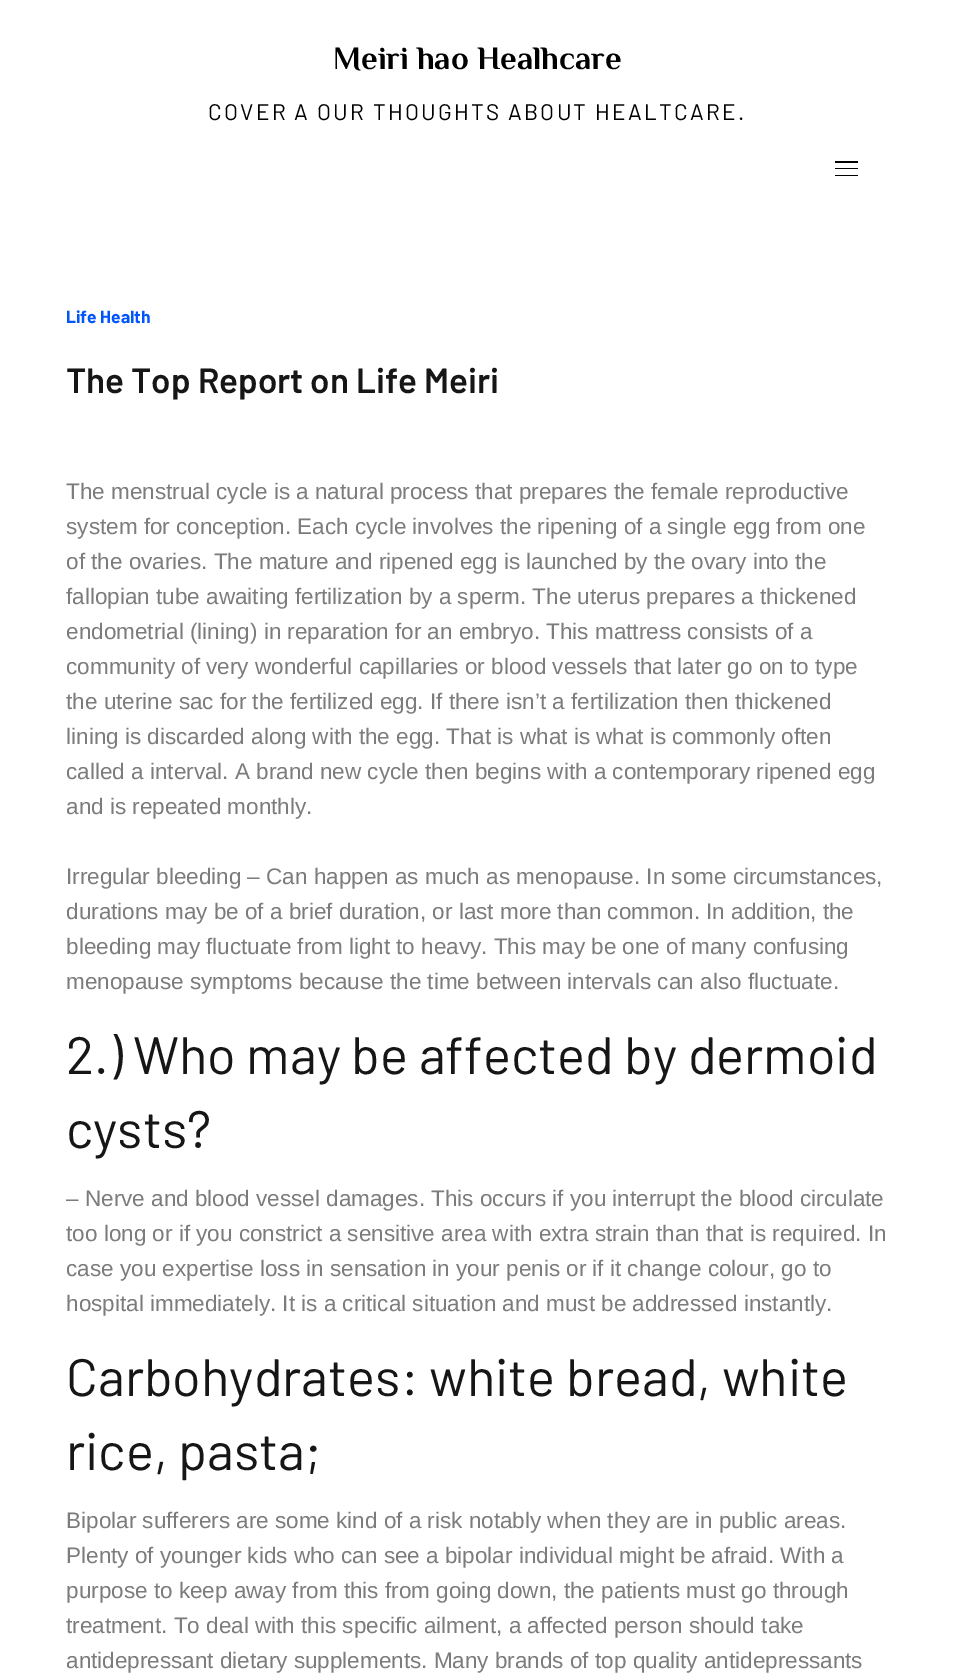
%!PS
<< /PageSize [953 1676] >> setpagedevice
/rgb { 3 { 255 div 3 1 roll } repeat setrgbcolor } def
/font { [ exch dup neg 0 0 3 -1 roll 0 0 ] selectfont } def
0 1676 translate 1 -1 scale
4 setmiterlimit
255 255 255 rgb
0 0 953 1676 rectfill
[
  [835 161 23 2 0 0 0]
  [835 168 23 1 0 0 0]
  [835 175 23 1 0 0 0]
] { aload pop rgb rectfill } forall
/Philosopher-Bold 32.5 font
333 69 moveto (Meiri hao Healhcare) show
/Barlow-Regular 22.5 font
208 120 moveto 2.25 0 (COVER A OUR THOUGHTS ABOUT HEALTCARE.) ashow
/Barlow-Bold 17.5 font
0 86 251 rgb
66 323 moveto (Life Health) show
/Barlow-SemiBold 35 font
23 22 22 rgb
66 393 moveto (The Top Report on Life Meiri) show
/LiberationSans-Regular 22.5 font
124 124 124 rgb
[
  [(The menstrual cycle is a natural process that prepares the female reproductive) 66 499]
  [(system for conception. Each cycle involves the ripening of a single egg from one) 66 534]
  [(of the ovaries. The mature and ripened egg is launched by the ovary into the) 66 569]
  [(fallopian tube awaiting fertilization by a sperm. The uterus prepares a thickened) 66 604]
  [(endometrial \(lining\) in reparation for an embryo. This mattress consists of a) 66 639]
  [(community of very wonderful capillaries or blood vessels that later go on to type) 66 674]
  [(the uterine sac for the fertilized egg. If there isn’t a fertilization then thickened) 66 709]
  [(lining is discarded along with the egg. That is what is what is commonly often) 66 744]
  [(called a interval. A brand new cycle then begins with a contemporary ripened egg) 66 779]
  [(and is repeated monthly.) 66 814]
  [(Irregular bleeding – Can happen as much as menopause. In some circumstances,) 66 884]
  [(durations may be of a brief duration, or last more than common. In addition, the) 66 919]
  [(bleeding may fluctuate from light to heavy. This may be one of many confusing) 66 954]
  [(menopause symptoms because the time between intervals can also fluctuate.) 66 989]
] { aload pop moveto show } forall
/Barlow-Regular 52.5 font
23 22 22 rgb
66 1074 moveto (2.\) Who may be affected by dermoid) show
66 1148 moveto (cysts?) show
/LiberationSans-Regular 22.5 font
124 124 124 rgb
[
  [(– Nerve and blood vessel damages. This occurs if you interrupt the blood circulate) 66 1206]
  [(too long or if you constrict a sensitive area with extra strain than that is required. In) 66 1241]
  [(case you expertise loss in sensation in your penis or if it change colour, go to) 66 1276]
  [(hospital immediately. It is a critical situation and must be addressed instantly.) 66 1311]
] { aload pop moveto show } forall
/Barlow-Regular 52.5 font
23 22 22 rgb
66 1396 moveto (Carbohydrates: white bread, white) show
66 1470 moveto (rice, pasta;) show
/LiberationSans-Regular 22.5 font
124 124 124 rgb
[
  [(Bipolar sufferers are some kind of a risk notably when they are in public areas.) 66 1528]
  [(Plenty of younger kids who can see a bipolar individual might be afraid. With a) 66 1563]
  [(purpose to keep away from this from going down, the patients must go through) 66 1598]
  [(treatment. To deal with this specific ailment, a affected person should take) 66 1633]
  [(antidepressant dietary supplements. Many brands of top quality antidepressants) 66 1668]
] { aload pop moveto show } forall
showpage
